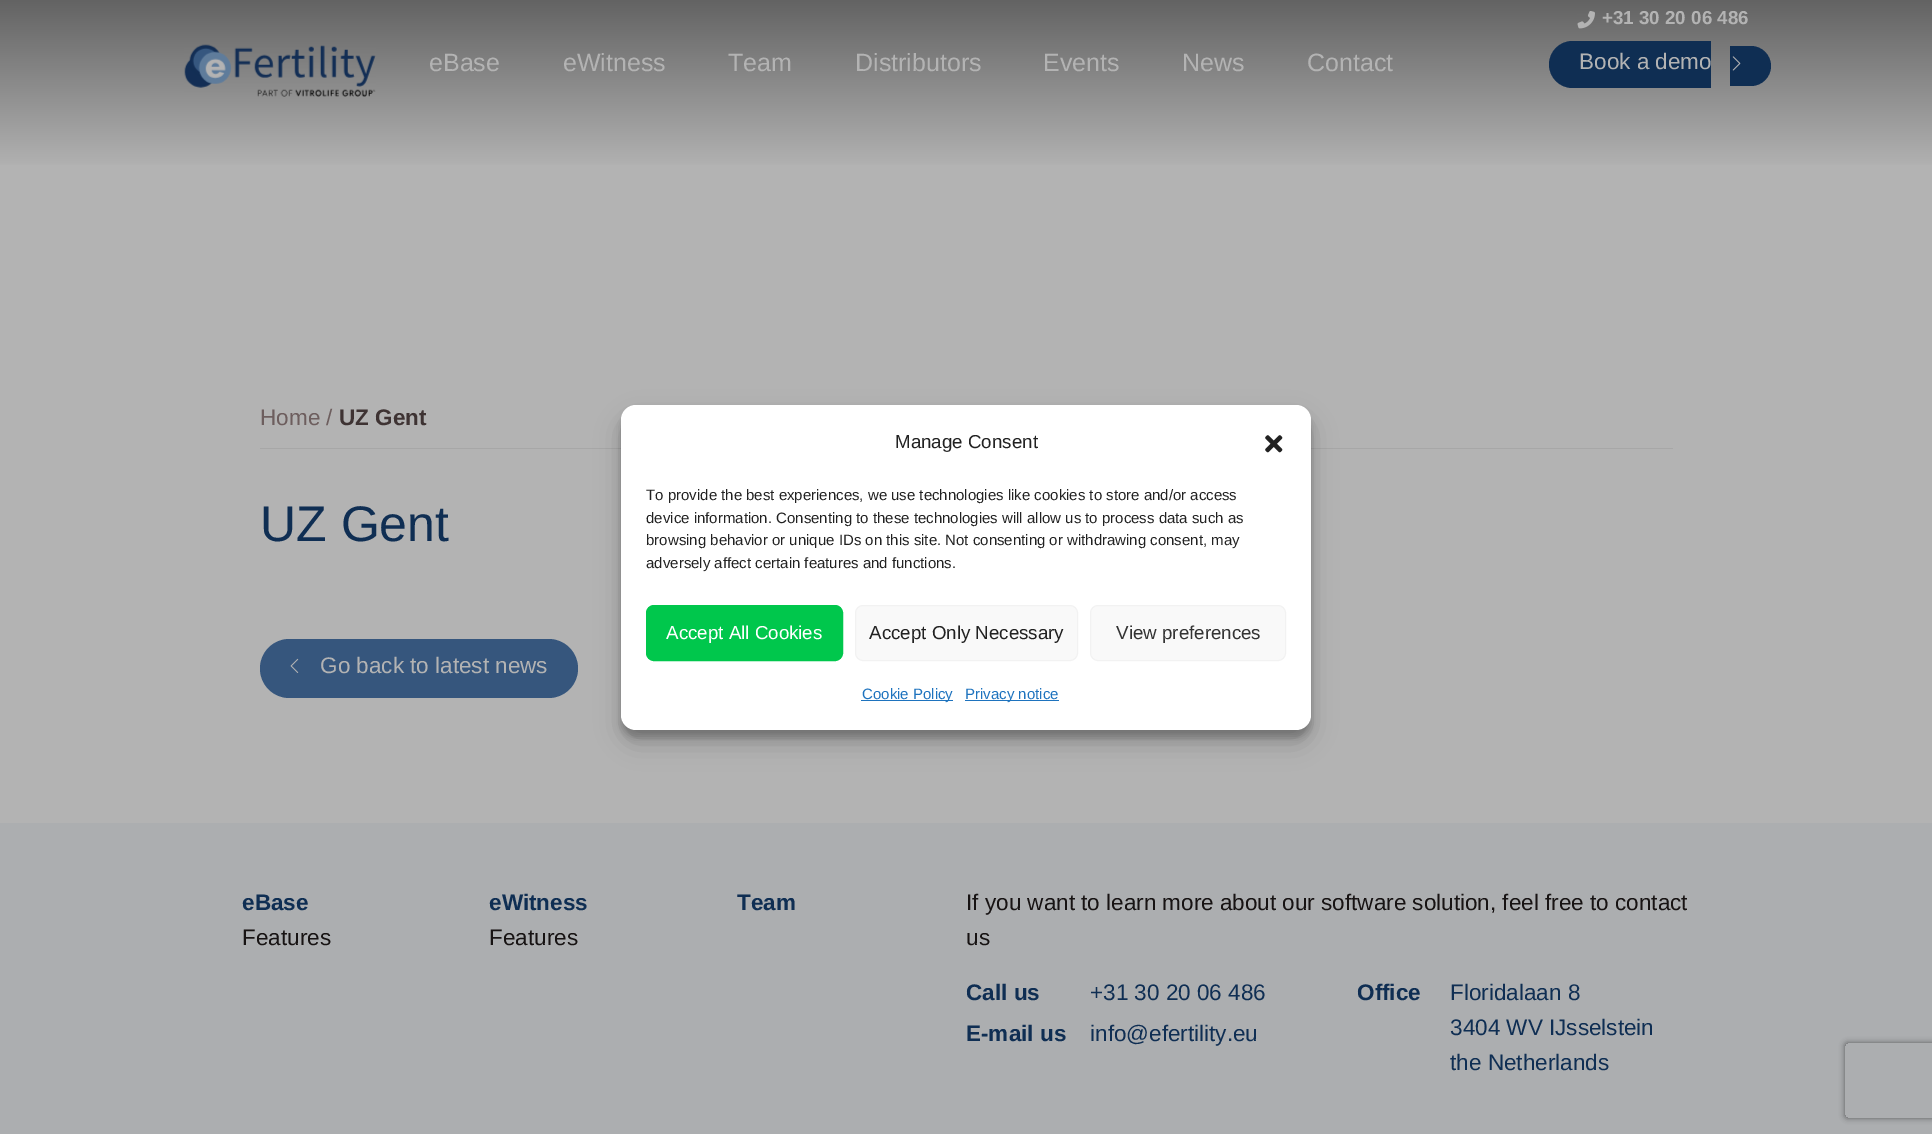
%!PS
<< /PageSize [1932 1134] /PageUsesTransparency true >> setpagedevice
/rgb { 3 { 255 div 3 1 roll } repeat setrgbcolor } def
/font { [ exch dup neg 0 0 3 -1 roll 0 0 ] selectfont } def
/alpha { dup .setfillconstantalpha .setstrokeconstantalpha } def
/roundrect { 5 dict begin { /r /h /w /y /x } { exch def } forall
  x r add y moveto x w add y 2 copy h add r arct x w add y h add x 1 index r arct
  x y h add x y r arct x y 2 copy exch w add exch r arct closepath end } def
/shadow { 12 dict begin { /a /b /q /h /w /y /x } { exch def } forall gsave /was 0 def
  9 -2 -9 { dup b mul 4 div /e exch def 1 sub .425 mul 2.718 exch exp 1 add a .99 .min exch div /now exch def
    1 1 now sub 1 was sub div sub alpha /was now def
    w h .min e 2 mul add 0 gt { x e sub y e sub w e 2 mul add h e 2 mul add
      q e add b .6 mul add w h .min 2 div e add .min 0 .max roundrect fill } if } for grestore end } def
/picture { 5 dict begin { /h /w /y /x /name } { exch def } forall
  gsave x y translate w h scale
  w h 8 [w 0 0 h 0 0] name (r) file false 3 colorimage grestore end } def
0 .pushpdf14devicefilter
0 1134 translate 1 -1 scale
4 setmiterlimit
179 179 179 rgb
0 0 1932 1134 rectfill
gsave 0 0 moveto 1932 0 lineto 1932 165 lineto 0 165 lineto closepath clip newpath
<< /ShadingType 2 /ColorSpace /DeviceRGB /Coords [966 0 966 340] /Extend [true true] /Function << /FunctionType 3 /Domain [0 1] /Functions [<< /FunctionType 2 /Domain [0 1] /C0 [0.388 0.388 0.388] /C1 [0.702 0.702 0.702] /N 1 >> << /FunctionType 2 /Domain [0 1] /C0 [0.702 0.702 0.702] /C1 [0.702 0.702 0.702] /N 1 >>] /Bounds [0.5] /Encode [0 1 0 1] >> >> shfill grestore
(img/1.rgb) 184 44 192 53 picture
(img/2.rgb) 1577 11 18 18 picture
15 46 83 rgb
1572.5 41 moveto 1711 41 lineto 1711 88 lineto 1572.5 88 lineto 1559.5 88 1549 77.5 1549 64.5 curveto 1549 51.5 1559.5 41 1572.5 41 curveto closepath fill
1730 46 moveto 1751 46 lineto 1762 46 1771 55 1771 66 curveto 1771 77 1762 86 1751 86 curveto 1730 86 lineto closepath fill
(img/3.rgb) 1732 56 9 15 picture
167 167 167 rgb
260 448 1413 1 rectfill
54 86 125 rgb
260 639 318 59 29.5 roundrect fill
(img/4.rgb) 290 658 9 15 picture
0 0 0 rgb
621 413 690 325 15 4 0.23 shadow
621 418 690 325 15 12.5 0.19 shadow
255 255 255 rgb
621 405 690 325 15 roundrect fill
(img/5.rgb) 1265 435 18 18 picture
0 199 76 rgb
646.5 605.5 196 55 7.5 roundrect gsave fill grestore
stroke
249 249 249 rgb
855.5 605.5 222 55 7.5 roundrect gsave fill grestore
242 242 242 rgb
stroke
249 249 249 rgb
1090.5 605.5 195 55 7.5 roundrect gsave fill grestore
242 242 242 rgb
stroke
[
  [861 700 92 1 30 115 190]
  [965 700 94 1 30 115 190]
  [0 823 1932 311 172 174 176]
] { aload pop rgb rectfill } forall
gsave
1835 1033 moveto 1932 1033 lineto 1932 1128 lineto 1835 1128 lineto closepath 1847.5 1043 moveto 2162.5 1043 lineto 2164 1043 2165 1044 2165 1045.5 curveto 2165 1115.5 lineto 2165 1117 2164 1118 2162.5 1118 curveto 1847.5 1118 lineto 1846 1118 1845 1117 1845 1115.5 curveto 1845 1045.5 lineto 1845 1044 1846 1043 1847.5 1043 curveto closepath eoclip newpath
90 90 90 rgb
1845 1043 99 75 2.5 3 1 shadow
grestore
/LiberationSans-Regular 25 font
179 179 179 rgb
[
  [(eBase) 429 71]
  [(eWitness) 563 71]
  [(Team) 728 71]
  [(Distributors) 855 71]
  [(Events) 1043 71]
  [(News) 1182 71]
  [(Contact) 1307 71]
] { aload pop moveto show } forall
/LiberationSans-Bold 18.75 font
1602 24 moveto (+31 30 20 06 486) show
/LiberationSans-Regular 22.5 font
1579 69 moveto (Book a demo) show
109 94 94 rgb
260 425 moveto (Home /) show
/LiberationSans-Bold 22.5 font
62 51 51 rgb
339 425 moveto (UZ Gent) show
/LiberationSans-Regular 50 font
15 46 83 rgb
260 541 moveto (UZ Gent) show
/LiberationSans-Regular 22.5 font
179 179 179 rgb
320 673 moveto (Go back to latest news) show
/LiberationSans-Regular 18.75 font
34 34 34 rgb
895 448 moveto (Manage Consent) show
/LiberationSans-Regular 15 font
[
  [(To provide the best experiences, we use technologies like cookies to store and/or access) 646 500]
  [(device information. Consenting to these technologies will allow us to process data such as) 646 523]
  [(browsing behavior or unique IDs on this site. Not consenting or withdrawing consent, may) 646 545]
  [(adversely affect certain features and functions.) 646 568]
] { aload pop moveto show } forall
/LiberationSans-Regular 18.75 font
255 255 255 rgb
666 639 moveto (Accept All Cookies) show
34 34 34 rgb
869 639 moveto (Accept Only Necessary) show
51 51 51 rgb
1116 639 moveto (View preferences) show
/LiberationSans-Regular 15 font
30 115 190 rgb
862 699 moveto (Cookie Policy) show
965 699 moveto (Privacy notice) show
/LiberationSans-Bold 22.5 font
15 46 83 rgb
242 910 moveto (eBase) show
/LiberationSans-Regular 22.5 font
23 19 19 rgb
242 945 moveto (Features) show
/LiberationSans-Bold 22.5 font
15 46 83 rgb
489 910 moveto (eWitness) show
/LiberationSans-Regular 22.5 font
23 19 19 rgb
489 945 moveto (Features) show
/LiberationSans-Bold 22.5 font
15 46 83 rgb
737 910 moveto (Team) show
/LiberationSans-Regular 22.5 font
23 19 19 rgb
966 910 moveto (If you want to learn more about our software solution, feel free to contact) show
966 945 moveto (us) show
/LiberationSans-Bold 22.5 font
15 46 83 rgb
966 1000 moveto (Call us) show
/LiberationSans-Regular 22.5 font
1090 1000 moveto (+31 30 20 06 486) show
/LiberationSans-Bold 22.5 font
966 1041 moveto (E-mail us) show
/LiberationSans-Regular 22.5 font
1090 1041 moveto (info@efertility.eu) show
/LiberationSans-Bold 22.5 font
1357 1000 moveto (Office) show
/LiberationSans-Regular 22.5 font
[
  [(Floridalaan 8) 1450 1000]
  [(3404 WV IJsselstein) 1450 1035]
  [(the Netherlands) 1450 1070]
] { aload pop moveto show } forall
.poppdf14devicefilter showpage
